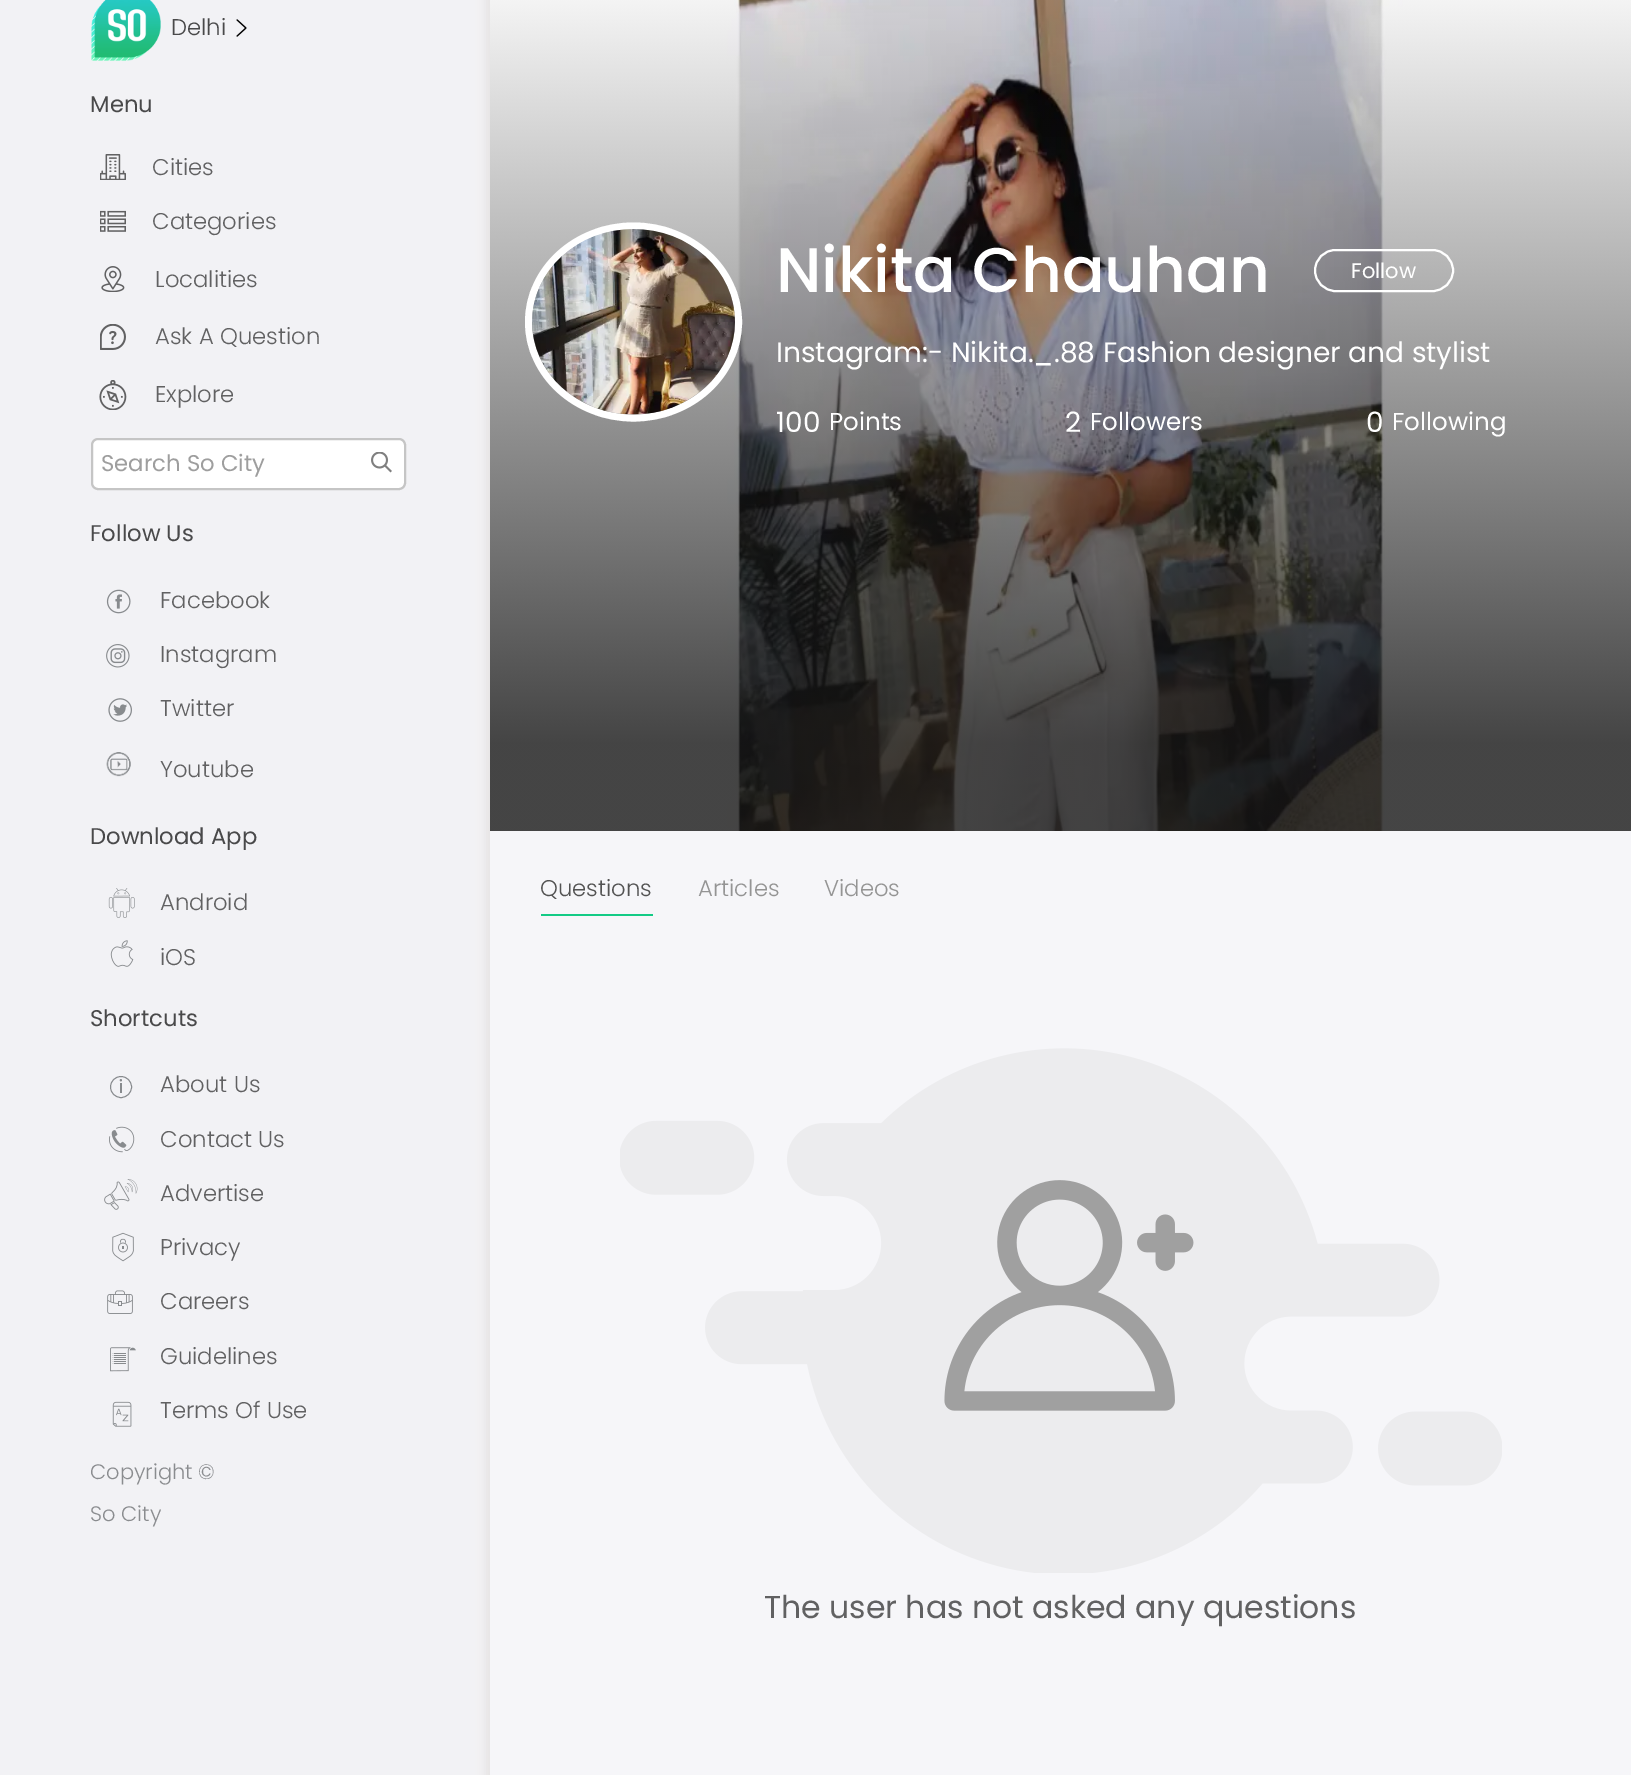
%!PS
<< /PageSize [1631 1775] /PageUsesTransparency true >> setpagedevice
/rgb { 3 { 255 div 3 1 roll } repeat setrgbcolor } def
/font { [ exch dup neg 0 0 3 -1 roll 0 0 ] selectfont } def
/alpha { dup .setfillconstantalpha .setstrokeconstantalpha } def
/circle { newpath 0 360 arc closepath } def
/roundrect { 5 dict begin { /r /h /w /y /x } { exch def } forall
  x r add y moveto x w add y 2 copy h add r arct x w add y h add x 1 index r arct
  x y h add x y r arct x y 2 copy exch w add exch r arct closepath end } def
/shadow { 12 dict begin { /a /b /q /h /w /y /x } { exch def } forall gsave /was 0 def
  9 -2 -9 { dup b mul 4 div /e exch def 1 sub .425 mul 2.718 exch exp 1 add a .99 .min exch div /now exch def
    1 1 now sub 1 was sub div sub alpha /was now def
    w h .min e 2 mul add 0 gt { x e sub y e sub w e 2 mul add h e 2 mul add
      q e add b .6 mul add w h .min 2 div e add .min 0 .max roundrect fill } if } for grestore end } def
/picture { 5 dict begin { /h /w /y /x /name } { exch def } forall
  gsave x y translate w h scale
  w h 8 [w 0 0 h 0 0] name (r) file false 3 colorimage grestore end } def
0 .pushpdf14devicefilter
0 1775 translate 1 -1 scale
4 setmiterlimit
242 242 245 rgb
0 0 1631 1775 rectfill
(img/1.rgb) 91 0 70 61 picture
(img/2.rgb) 236 19 11 18 picture
(img/3.rgb) 100 154 26 26 picture
(img/4.rgb) 100 210 26 22 picture
(img/5.rgb) 101 266 24 26 picture
(img/6.rgb) 100 324 26 26 picture
(img/7.rgb) 99 380 28 30 picture
255 255 255 rgb
92 439 313 50 6 roundrect gsave fill grestore
197 197 197 rgb
2 setlinewidth
stroke
(img/8.rgb) 371 452 21 21 picture
(img/9.rgb) 106 589 25 25 picture
(img/10.rgb) 106 644 24 24 picture
(img/11.rgb) 108 698 24 24 picture
(img/12.rgb) 106 752 25 25 picture
(img/13.rgb) 108 888 27 30 picture
(img/14.rgb) 110 940 24 27 picture
136 139 142 rgb
0.9 setlinewidth
121 1087 10.5 circle stroke
120.9 1080.2 1.1 circle fill
120 1083 2 10 rectfill
(img/15.rgb) 109 1126 26 27 picture
(img/16.rgb) 104 1179 34 31 picture
(img/17.rgb) 112 1232 22 30 picture
(img/18.rgb) 107 1290 26 24 picture
(img/19.rgb) 110 1347 26 25 picture
(img/20.rgb) 112 1401 20 26 picture
230 228 228 rgb
485 -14 1141 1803 0 4.5 1 shadow
(img/21.rgb) 490 0 1141 831 picture
255 255 255 rgb
7 setlinewidth
633.5 226 moveto 691.5 226 738.5 269 738.5 322 curveto 738.5 375 691.5 418 633.5 418 curveto 575.5 418 528.5 375 528.5 322 curveto 528.5 269 575.5 226 633.5 226 curveto closepath stroke
(img/22.rgb) 532 229 203 186 picture
2 setlinewidth
1315 250 138 41 20.5 roundrect stroke
246 246 249 rgb
490 831 1141 944 rectfill
19 203 134 rgb
541 914 112 2 rectfill
(img/23.rgb) 620 1048 882 525 picture
/Poppins-Light 22.75 font
73 73 74 rgb
171 35 moveto (Delhi) show
/Poppins-Regular 22.75 font
90 112 moveto (Menu) show
/Poppins-Light 22.75 font
97 97 98 rgb
[
  [(Cities) 152 175]
  [(Categories) 152 229]
  [(Localities) 155 287]
  [(Ask A Question) 155 344]
  [(Explore) 155 402]
] { aload pop moveto show } forall
/Poppins-Regular 22.75 font
158 158 158 rgb
101 471 moveto (Search So City) show
73 73 74 rgb
90 541 moveto (Follow Us) show
/Poppins-Light 22.75 font
97 97 98 rgb
[
  [(Facebook) 160 608]
  [(Instagram) 160 662]
  [(Twitter) 160 716]
  [(Youtube) 160 777]
] { aload pop moveto show } forall
/Poppins-Regular 22.75 font
73 73 74 rgb
90 844 moveto (Download App) show
/Poppins-Light 22.75 font
97 97 98 rgb
160 910 moveto (Android) show
160 965 moveto (iOS) show
/Poppins-Regular 22.75 font
73 73 74 rgb
90 1026 moveto (Shortcuts) show
/Poppins-Light 22.75 font
97 97 98 rgb
[
  [(About Us) 160 1092]
  [(Contact Us) 160 1147]
  [(Advertise) 160 1201]
  [(Privacy) 160 1255]
  [(Careers) 160 1309]
  [(Guidelines) 160 1364]
  [(Terms Of Use) 160 1418]
] { aload pop moveto show } forall
/Poppins-Light 21 font
138 140 143 rgb
90 1479 moveto (Copyright ©) show
90 1521 moveto (So City) show
/Poppins-Medium 63 font
255 255 255 rgb
776 292 moveto (Nikita Chauhan) show
/Poppins-Regular 21 font
1351 278 moveto (Follow) show
/Poppins-Regular 28 font
776 362 moveto (Instagram:- Nikita._.88 Fashion designer and stylist) show
776 432 moveto (100) show
/Poppins-Regular 24.5 font
829 430 moveto (Points) show
/Poppins-Regular 28 font
1065 432 moveto (2) show
/Poppins-Regular 24.5 font
1090 430 moveto (Followers) show
/Poppins-Regular 28 font
1366 432 moveto (0) show
/Poppins-Regular 24.5 font
1392 430 moveto (Following) show
/Poppins-Light 22.75 font
83 83 83 rgb
540 896 moveto (Questions) show
148 148 148 rgb
698 896 moveto (Articles) show
824 896 moveto (Videos) show
/Poppins-Regular 31.5 font
97 97 98 rgb
764 1618 moveto (The user has not asked any questions) show
.poppdf14devicefilter showpage
